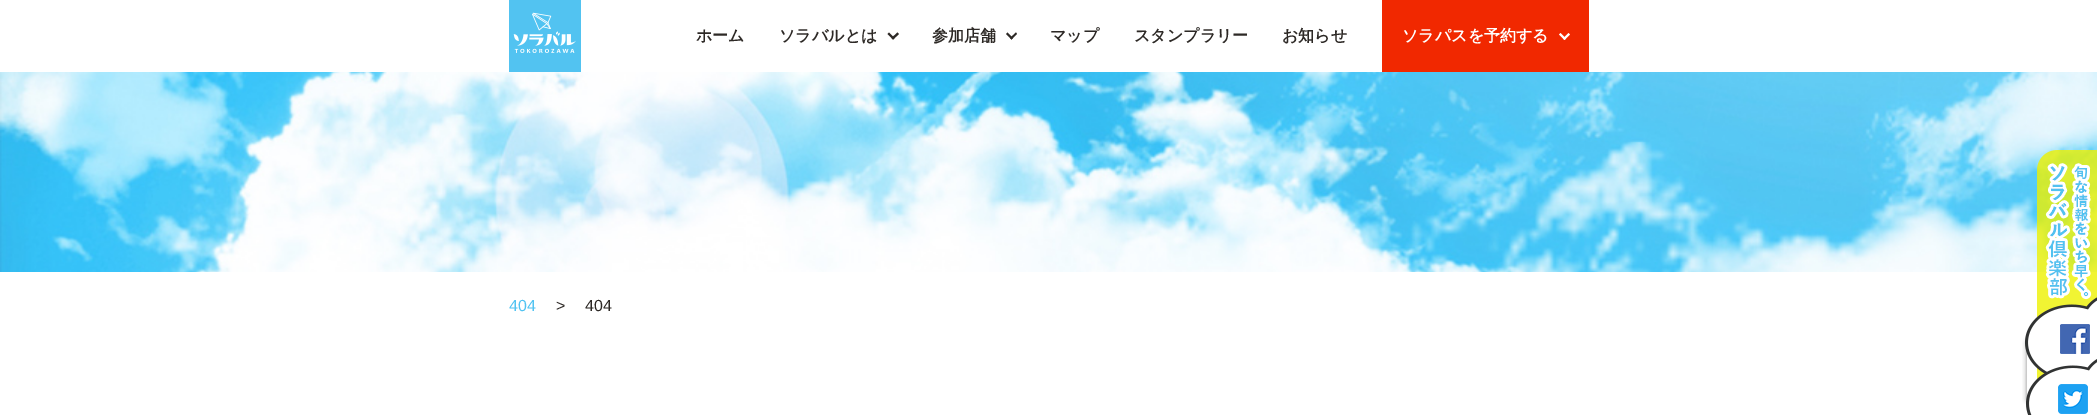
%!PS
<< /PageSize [2097 415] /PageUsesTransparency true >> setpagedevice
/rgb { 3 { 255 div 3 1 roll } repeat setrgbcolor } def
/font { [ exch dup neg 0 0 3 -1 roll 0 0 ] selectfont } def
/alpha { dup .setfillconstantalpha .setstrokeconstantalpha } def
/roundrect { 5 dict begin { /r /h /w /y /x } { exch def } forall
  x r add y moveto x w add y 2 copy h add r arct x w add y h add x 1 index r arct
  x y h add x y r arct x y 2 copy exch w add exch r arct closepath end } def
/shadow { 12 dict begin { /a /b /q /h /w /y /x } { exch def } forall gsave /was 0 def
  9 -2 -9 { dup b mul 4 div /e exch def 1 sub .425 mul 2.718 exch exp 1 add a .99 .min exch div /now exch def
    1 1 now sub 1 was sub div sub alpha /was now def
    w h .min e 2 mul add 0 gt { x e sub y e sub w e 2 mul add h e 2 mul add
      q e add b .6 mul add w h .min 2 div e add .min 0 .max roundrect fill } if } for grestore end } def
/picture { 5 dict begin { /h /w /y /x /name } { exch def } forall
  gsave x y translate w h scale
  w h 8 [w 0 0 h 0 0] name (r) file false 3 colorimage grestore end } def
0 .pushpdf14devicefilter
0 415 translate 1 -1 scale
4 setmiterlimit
255 255 255 rgb
0 0 2097 415 rectfill
(img/1.rgb) 509 0 72 72 picture
45 41 38 rgb
897.5 32.5 moveto 899 34 lineto 893 39.5 lineto 891.5 38 lineto closepath fill
889 32.5 moveto 894.5 38 lineto 893 39.5 lineto 887.5 34 lineto closepath fill
1016 32.5 moveto 1017 34 lineto 1011.5 39.5 lineto 1010 38 lineto closepath fill
1007.5 32.5 moveto 1013 38 lineto 1011.5 39.5 lineto 1006 34 lineto closepath fill
241 40 0 rgb
1382 0 207 72 rectfill
255 255 255 rgb
1568.5 33 moveto 1570 34.5 lineto 1564.5 40 lineto 1563 38.5 lineto closepath fill
1560.5 33 moveto 1566 38.5 lineto 1564.5 40 lineto 1559 34.5 lineto closepath fill
(img/2.rgb) 0 72 2097 200 picture
gsave
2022 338 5 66 rectclip
128 128 128 rgb
2027 341 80 60 2 2.5 1 shadow
grestore
(img/3.rgb) 2037 150 60 229 picture
(img/4.rgb) 2025 297 72 77 picture
(img/5.rgb) 2026 359 71 56 picture
/WenQuanYiZenHei-Bold 16 font
45 41 38 rgb
[
  [(ホーム) 696 41]
  [(ソラバルとは) 779 41]
  [(参加店舗) 932 41]
  [(マップ) 1050 41]
  [(スタンプラリー) 1134 41]
  [(お知らせ) 1282 41]
] { aload pop moveto show } forall
255 255 255 rgb
1402 41 moveto (ソラパスを予約する) show
/LiberationSans-Regular 16 font
82 195 241 rgb
509 311 moveto (404) show
45 41 38 rgb
556 311 moveto (>) show
585 311 moveto (404) show
.poppdf14devicefilter showpage
